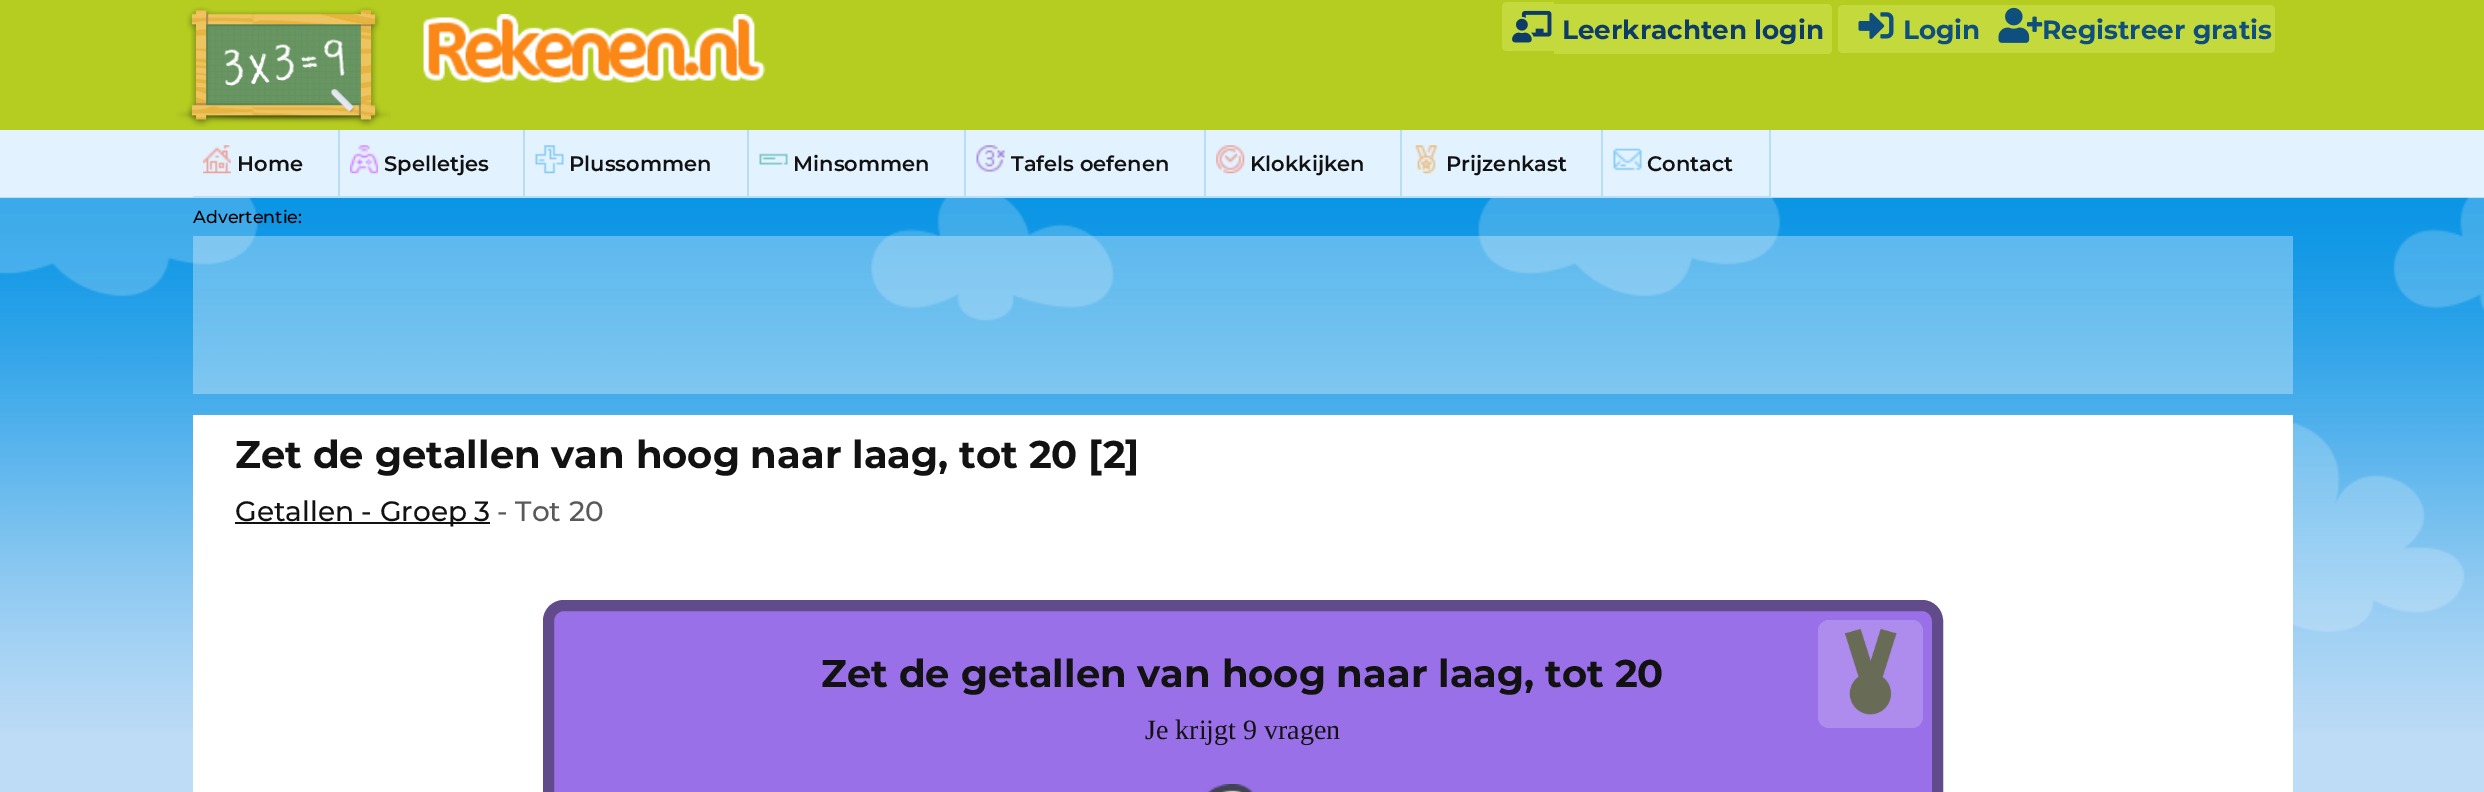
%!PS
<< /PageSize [2484 792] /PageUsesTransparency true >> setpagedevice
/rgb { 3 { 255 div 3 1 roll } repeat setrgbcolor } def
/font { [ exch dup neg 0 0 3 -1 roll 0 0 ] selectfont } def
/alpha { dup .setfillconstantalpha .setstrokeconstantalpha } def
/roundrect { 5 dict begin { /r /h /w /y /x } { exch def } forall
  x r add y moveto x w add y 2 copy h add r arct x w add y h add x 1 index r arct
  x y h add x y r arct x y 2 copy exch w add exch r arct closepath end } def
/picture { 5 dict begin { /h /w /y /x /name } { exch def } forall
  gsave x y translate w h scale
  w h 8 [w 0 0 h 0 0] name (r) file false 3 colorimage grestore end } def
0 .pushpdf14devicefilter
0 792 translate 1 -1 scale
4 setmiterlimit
181 205 33 rgb
0 0 2484 792 rectfill
(img/1.rgb) 176 7 215 120 picture
(img/2.rgb) 423 14 343 69 picture
196 218 60 rgb
1507 2 moveto 1554 2 lineto 1554 51 lineto 1507 51 lineto 1504 51 1502 49 1502 46 curveto 1502 7 lineto 1502 4 1504 2 1507 2 curveto closepath fill
1554 4 moveto 1827 4 lineto 1830 4 1832 6 1832 9 curveto 1832 49 lineto 1832 52 1830 54 1827 54 curveto 1554 54 lineto closepath fill
(img/3.rgb) 1512 10 40 33 picture
1838 5 437 48 5 roundrect fill
(img/4.rgb) 1858 12 36 27 picture
(img/5.rgb) 1998 7 45 36 picture
227 242 255 rgb
0 130 2484 68 rectfill
190 220 246 rgb
0 205 2484 587 rectfill
(img/14.rgb) 0 197 2484 535 picture
182 223 247 rgb
338 130 2 68 rectfill
193 196 147 2 rectfill
(img/6.rgb) 203 145 28 29 picture
523 130 2 68 rectfill
340 196 185 2 rectfill
(img/7.rgb) 350 145 28 29 picture
747 130 2 68 rectfill
525 196 224 2 rectfill
(img/8.rgb) 535 145 29 29 picture
964 130 2 68 rectfill
749 196 217 2 rectfill
(img/9.rgb) 759 153 29 12 picture
1204 130 2 68 rectfill
966 196 240 2 rectfill
(img/10.rgb) 976 145 29 27 picture
1400 130 2 68 rectfill
1206 196 196 2 rectfill
(img/11.rgb) 1216 145 29 29 picture
1601 130 2 68 rectfill
1402 196 201 2 rectfill
(img/12.rgb) 1415 145 23 29 picture
1769 130 2 68 rectfill
1603 196 168 2 rectfill
(img/13.rgb) 1613 148 29 23 picture
0.32 alpha
[
  [193 236 2100 158 255 255 255]
] { aload pop rgb rectfill } forall
1 alpha
[
  [193 415 2100 377 255 255 255]
  [235 522 255 2 18 18 18]
] { aload pop rgb rectfill } forall
153 112 232 rgb
548.5 605.5 1389 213 15.5 roundrect gsave fill grestore
97 75 138 rgb
11 setlinewidth
stroke
173 140 237 rgb
1818 620 105 108 11 roundrect fill
(img/15.rgb) 1844 629 53 86 picture
(img/16.rgb) 1207 784 47 8 picture
/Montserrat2-Thin 26.25 font
14 60 103 rgb
1562 39 moveto (Leerkrachten login) show
15 79 125 rgb
1903 39 moveto (Login) show
2042 39 moveto (Registreer gratis) show
/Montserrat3-Thin 21 font
18 18 18 rgb
[
  [(Home) 237 171]
  [(Spelletjes) 384 171]
  [(Plussommen) 569 171]
  [(Minsommen) 793 171]
  [(Tafels oefenen) 1011 171]
  [(Klokkijken) 1250 171]
  [(Prijzenkast) 1446 171]
  [(Contact) 1647 171]
] { aload pop moveto show } forall
/Montserrat-Thin 17.5 font
0 0 0 rgb
193 223 moveto (Advertentie:) show
/Montserrat2-Thin 38.5 font
18 18 18 rgb
235 468 moveto (Zet de getallen van hoog naar laag, tot 20 [2]) show
/Montserrat-Thin 28 font
235 521 moveto (Getallen - Groep 3) show
89 89 89 rgb
497 521 moveto (- Tot 20) show
/Montserrat2-Thin 38.5 font
18 18 18 rgb
821 687 moveto (Zet de getallen van hoog naar laag, tot 20) show
/LiberationSerif-Regular 28 font
1145 739 moveto (Je krijgt 9 vragen) show
.poppdf14devicefilter showpage
